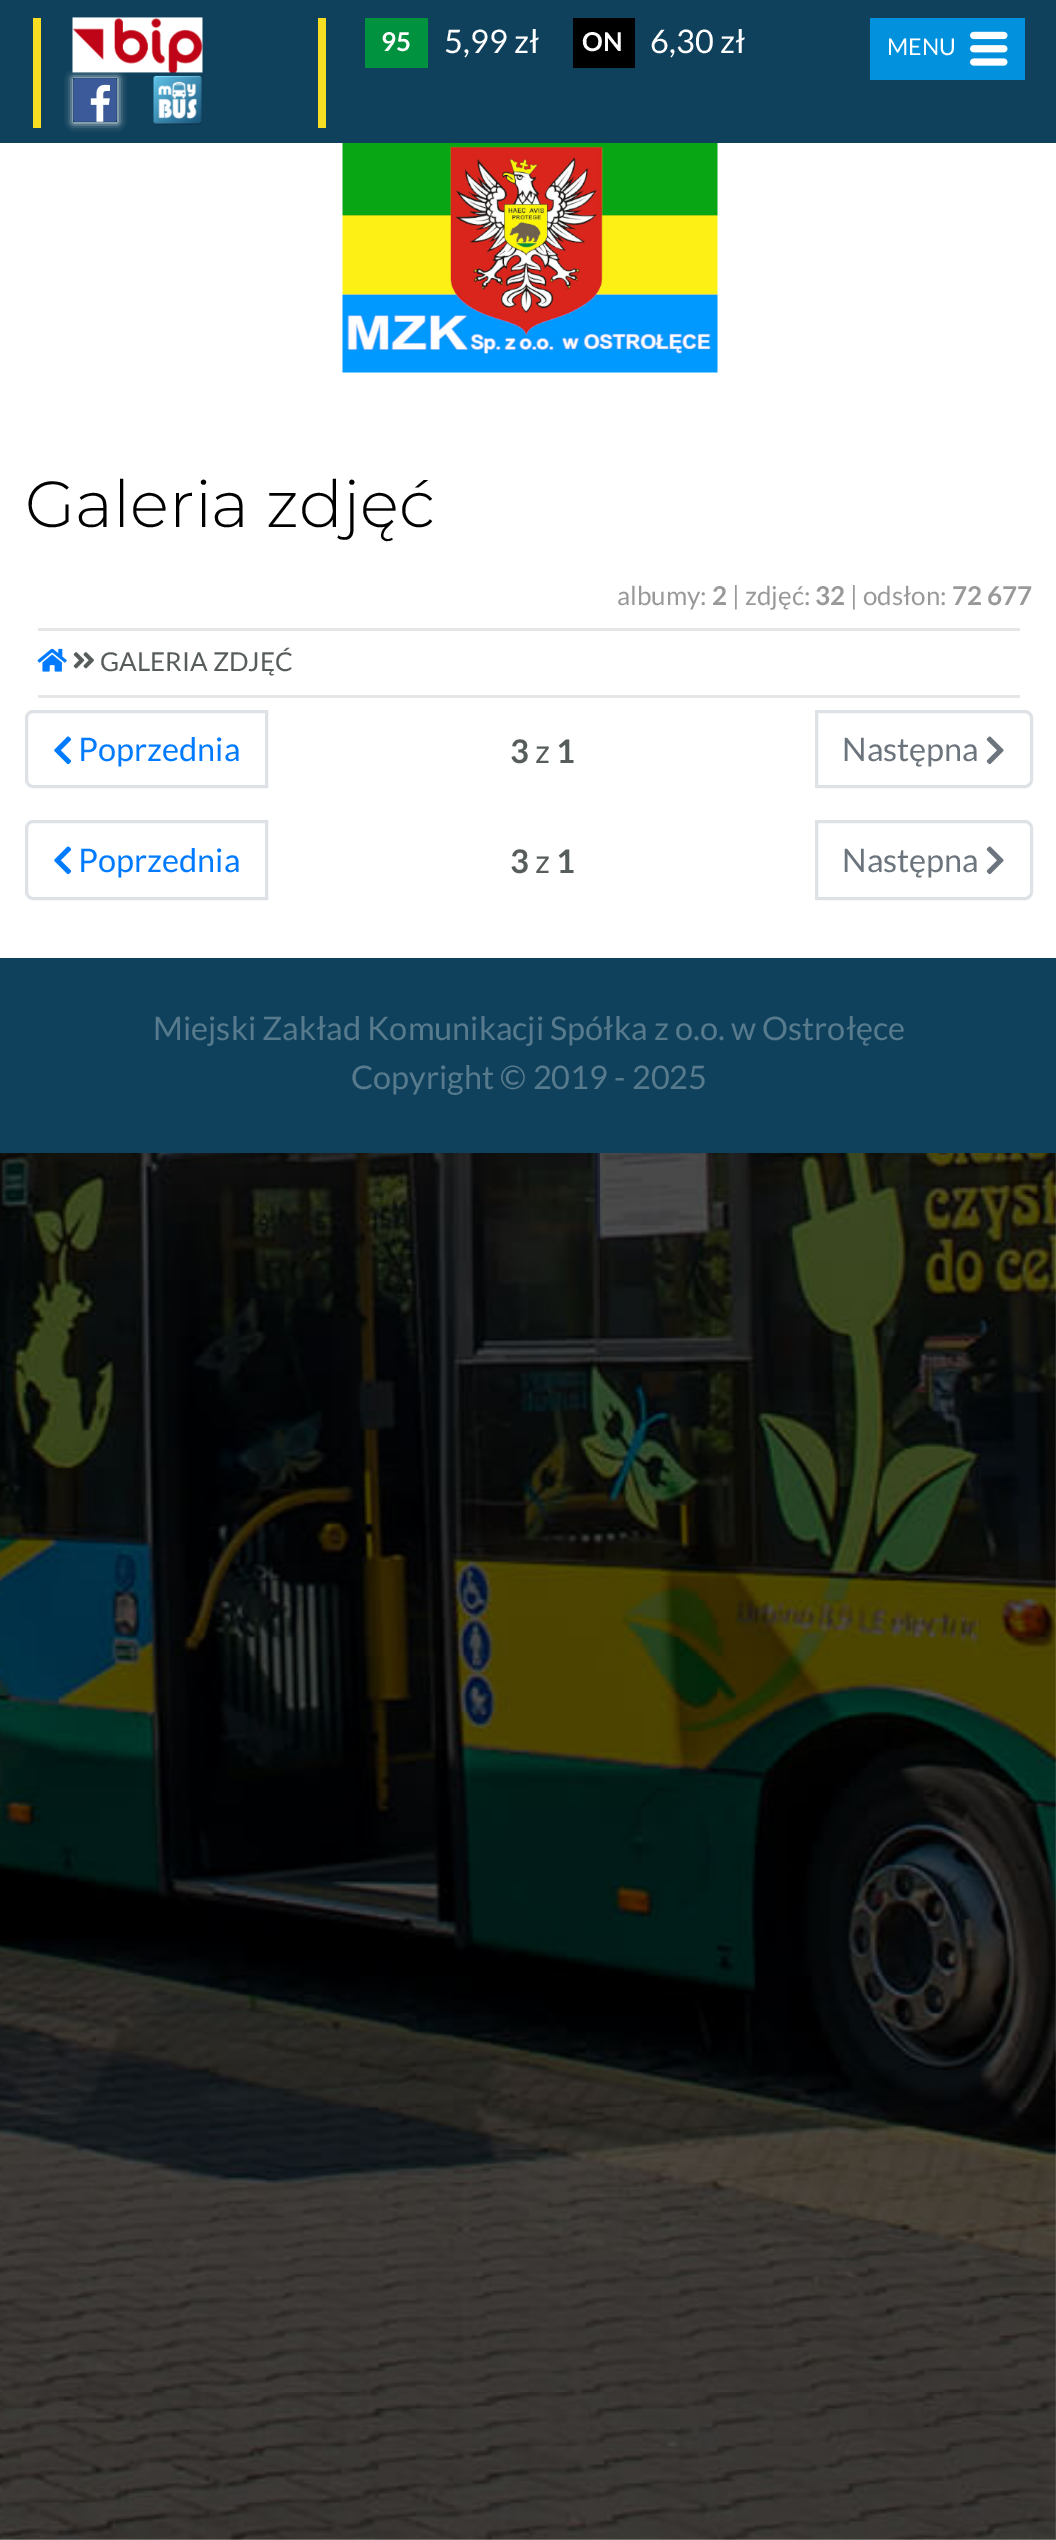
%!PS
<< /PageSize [1056 2540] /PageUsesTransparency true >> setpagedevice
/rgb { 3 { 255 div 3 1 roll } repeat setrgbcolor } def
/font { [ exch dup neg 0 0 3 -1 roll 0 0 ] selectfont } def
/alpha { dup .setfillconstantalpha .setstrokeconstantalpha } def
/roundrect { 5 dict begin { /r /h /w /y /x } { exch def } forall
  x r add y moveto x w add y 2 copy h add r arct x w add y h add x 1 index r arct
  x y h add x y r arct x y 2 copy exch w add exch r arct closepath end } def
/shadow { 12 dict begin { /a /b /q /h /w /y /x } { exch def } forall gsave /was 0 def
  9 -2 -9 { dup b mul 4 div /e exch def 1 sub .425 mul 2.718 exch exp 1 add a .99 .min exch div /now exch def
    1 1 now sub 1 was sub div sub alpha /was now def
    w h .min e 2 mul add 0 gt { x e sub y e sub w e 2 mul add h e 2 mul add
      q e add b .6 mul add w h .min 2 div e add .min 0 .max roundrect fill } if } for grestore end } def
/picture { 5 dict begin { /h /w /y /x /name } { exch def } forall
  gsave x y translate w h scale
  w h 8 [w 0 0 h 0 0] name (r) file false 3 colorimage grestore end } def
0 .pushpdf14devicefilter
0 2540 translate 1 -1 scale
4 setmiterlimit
255 255 255 rgb
0 0 1056 2540 rectfill
(img/1.rgb) 0 1153 1056 1387 picture
15 65 92 rgb
0 0 1056 143 rectfill
247 222 34 rgb
33 18 8 110 rectfill
(img/2.rgb) 72 17 131 56 picture
255 255 255 rgb
73 78 45 45 0 4 1 shadow
(img/3.rgb) 153 75 49 50 picture
(img/4.rgb) 73 78 44 44 picture
[
  [318 18 8 110 247 222 34]
  [365 18 63 50 0 146 63]
  [573 18 62 50 0 0 0]
  [870 18 155 62 2 145 221]
] { aload pop rgb rectfill } forall
(img/5.rgb) 970 31 38 35 picture
230 230 230 rgb
38 628 982 3 rectfill
(img/6.rgb) 37 648 30 24 picture
(img/7.rgb) 73 652 21 17 picture
38 695 982 3 rectfill
222 226 230 rgb
3 setlinewidth
33 711.5 moveto 266.5 711.5 lineto 266.5 786.5 lineto 33 786.5 lineto 29.5 786.5 26.5 783.5 26.5 780 curveto 26.5 718 lineto 26.5 714.5 29.5 711.5 33 711.5 curveto closepath stroke
(img/8.rgb) 54 736 18 29 picture
816.5 711.5 moveto 1025 711.5 lineto 1028.5 711.5 1031.5 714.5 1031.5 718 curveto 1031.5 780 lineto 1031.5 783.5 1028.5 786.5 1025 786.5 curveto 816.5 786.5 lineto closepath stroke
(img/9.rgb) 986 736 18 29 picture
33 821.5 moveto 266.5 821.5 lineto 266.5 898.5 lineto 33 898.5 lineto 29.5 898.5 26.5 895.5 26.5 892 curveto 26.5 828 lineto 26.5 824.5 29.5 821.5 33 821.5 curveto closepath stroke
(img/8.rgb) 54 846 18 29 picture
816.5 821.5 moveto 1025 821.5 lineto 1028.5 821.5 1031.5 824.5 1031.5 828 curveto 1031.5 892 lineto 1031.5 895.5 1028.5 898.5 1025 898.5 curveto 816.5 898.5 lineto closepath stroke
(img/9.rgb) 986 846 18 29 picture
15 65 92 rgb
0 958 1056 195 rectfill
(img/10.rgb) 342 143 376 230 picture
/Lato-Bold 26 font
255 255 255 rgb
381 51 moveto (95) show
/Lato-Regular 32.5 font
444 53 moveto (5,99 zł) show
/Lato-Bold 26 font
582 51 moveto (ON) show
/Lato-Regular 32.5 font
650 53 moveto (6,30 zł) show
/Lato-Regular 23 font
887 55 moveto (MENU) show
/Montserrat-Light 65 font
0 0 0 rgb
25 527 moveto (Galeria zdjęć) show
/Lato-Regular 26 font
153 153 153 rgb
617 605 moveto (albumy:) show
/Lato-Bold 26 font
712 605 moveto (2) show
/Lato-Regular 26 font
732 605 moveto (| zdjęć:) show
/Lato-Bold 26 font
815 605 moveto (32) show
/Lato-Regular 26 font
850 605 moveto (| odsłon:) show
/Lato-Bold 26 font
952 605 moveto (72 677) show
/Lato-Regular 26 font
87 93 91 rgb
100 671 moveto (GALERIA ZDJĘĆ) show
/Lato-Regular 32.5 font
0 123 255 rgb
78 761 moveto (Poprzednia) show
/Lato-Bold 32.5 font
87 93 91 rgb
510 763 moveto (3) show
/Lato-Regular 32.5 font
535 763 moveto (z) show
/Lato-Bold 32.5 font
556 763 moveto (1) show
/Lato-Regular 32.5 font
108 117 125 rgb
842 761 moveto (Następna) show
0 123 255 rgb
78 872 moveto (Poprzednia) show
/Lato-Bold 32.5 font
87 93 91 rgb
510 873 moveto (3) show
/Lato-Regular 32.5 font
535 873 moveto (z) show
/Lato-Bold 32.5 font
556 873 moveto (1) show
/Lato-Regular 32.5 font
108 117 125 rgb
842 872 moveto (Następna) show
87 122 141 rgb
153 1040 moveto (Miejski Zakład Komunikacji Spółka z o.o. w Ostrołęce) show
351 1089 moveto (Copyright © 2019 - 2025) show
.poppdf14devicefilter showpage
